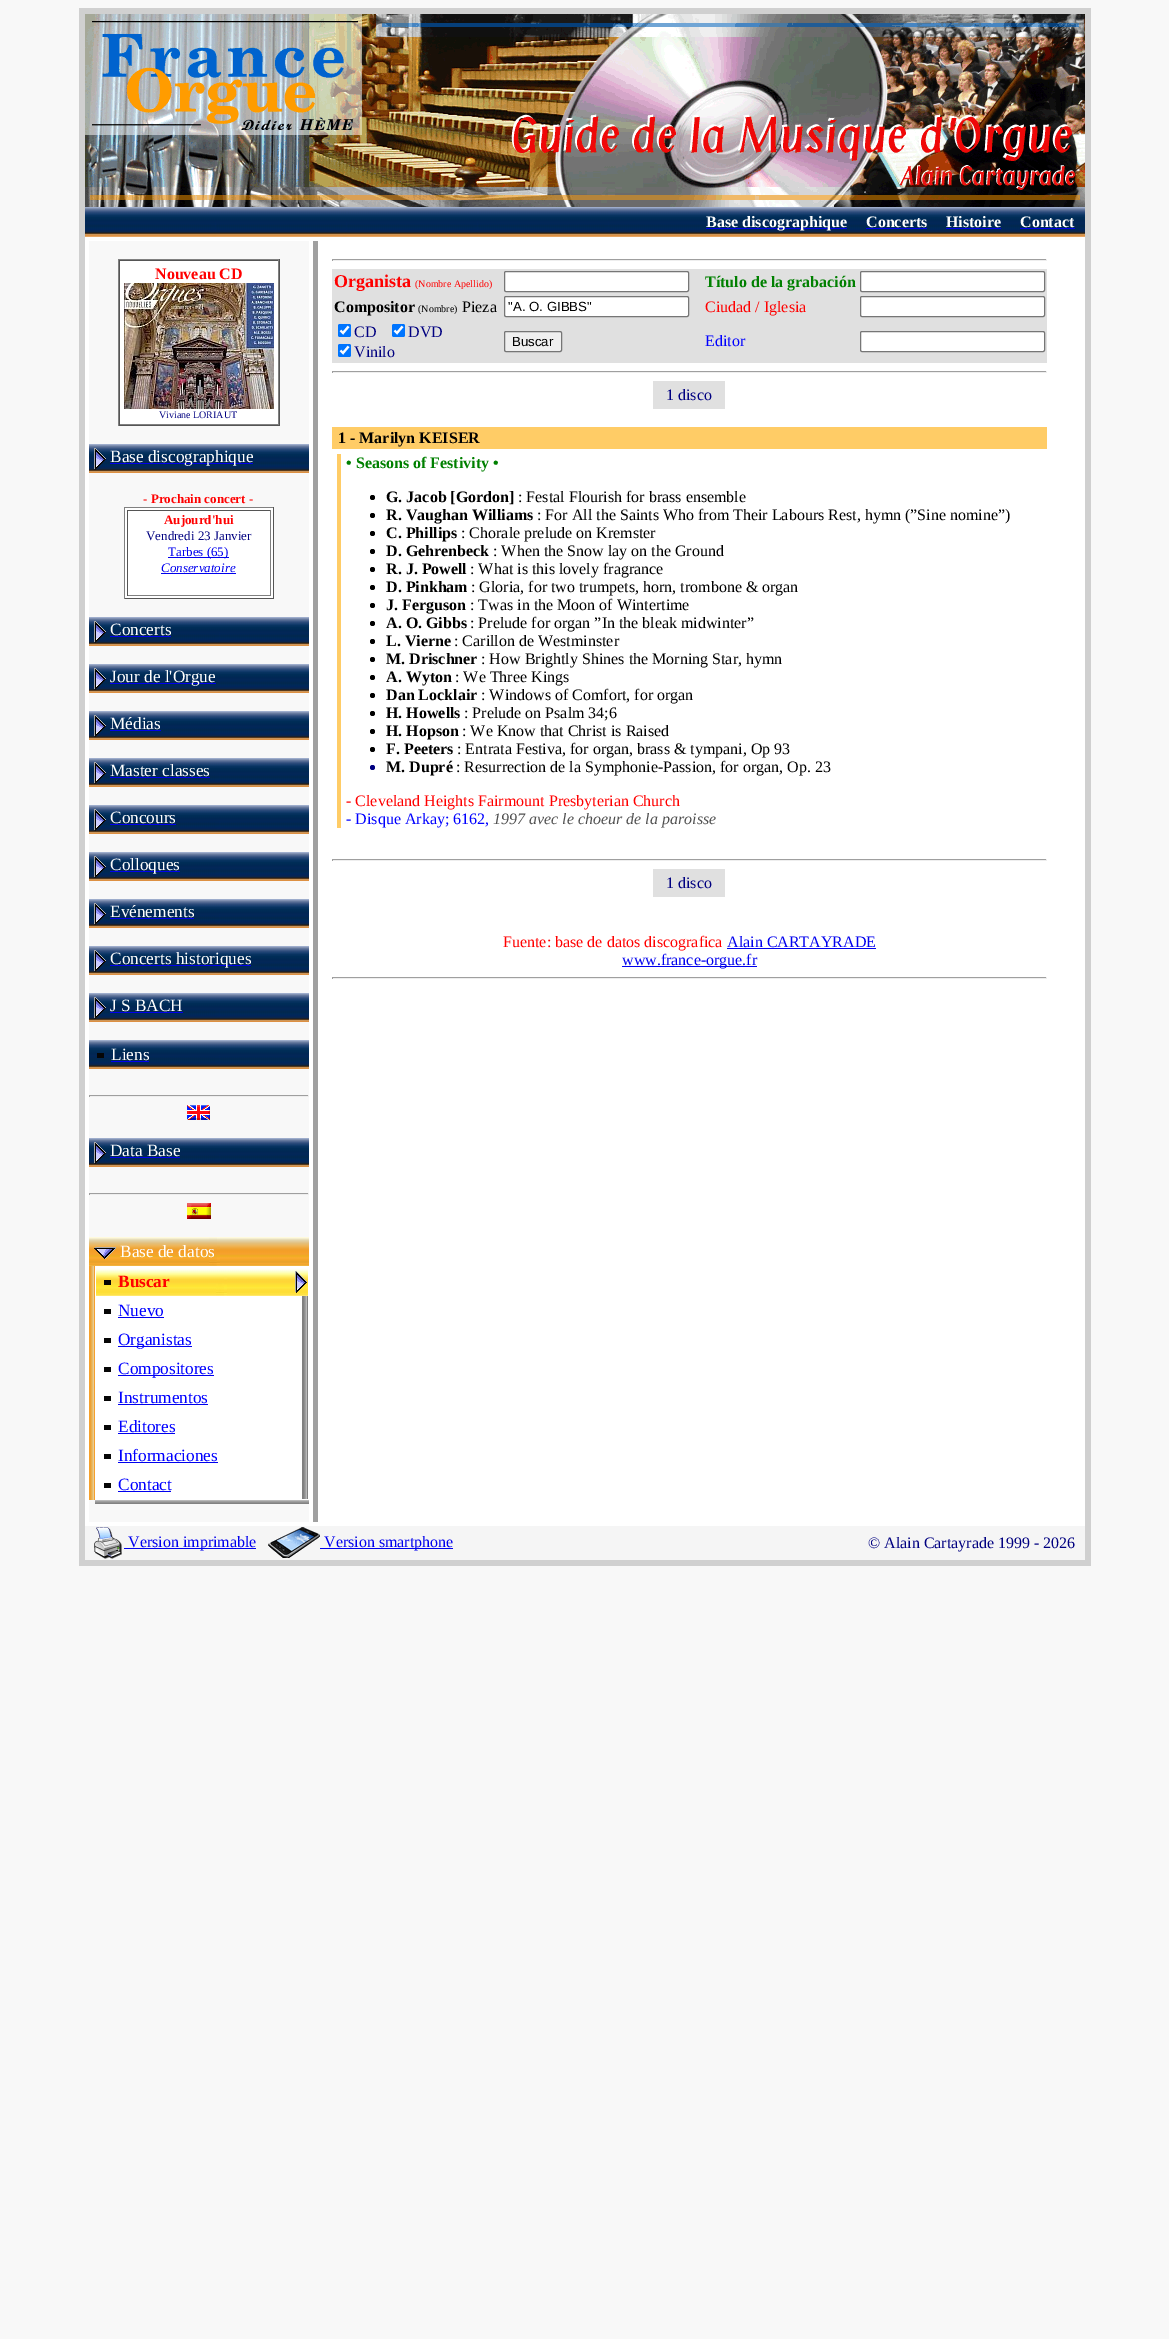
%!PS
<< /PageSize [1169 2339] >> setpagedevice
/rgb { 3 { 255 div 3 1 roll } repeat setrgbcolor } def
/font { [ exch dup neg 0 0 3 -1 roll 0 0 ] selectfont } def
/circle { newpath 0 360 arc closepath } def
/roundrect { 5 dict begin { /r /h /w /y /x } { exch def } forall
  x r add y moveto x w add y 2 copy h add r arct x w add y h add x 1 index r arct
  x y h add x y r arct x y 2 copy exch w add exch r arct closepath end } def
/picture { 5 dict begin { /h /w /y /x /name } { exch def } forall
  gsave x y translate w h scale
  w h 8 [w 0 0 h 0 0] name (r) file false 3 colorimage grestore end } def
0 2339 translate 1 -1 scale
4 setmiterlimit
248 248 248 rgb
0 0 1169 2339 rectfill
208 208 208 rgb
79 8 1012 1558 rectfill
255 255 255 rgb
85 237 1000 1289 rectfill
(img/1.rgb) 85 14 1000 193 picture
(img/2.rgb) 85 207 1000 30 picture
[
  [706 228 141 1 0 0 238]
  [866 228 61 1 0 0 238]
  [946 228 55 1 0 0 238]
  [1020 228 55 1 0 0 238]
  [89 241 220 1281 248 248 248]
  [120 261 158 163 255 255 255]
  [118 259 162 1 128 128 128]
  [279 259 1 167 85 85 85]
  [118 425 162 1 85 85 85]
  [118 259 1 167 128 128 128]
  [119 260 160 1 85 85 85]
  [278 260 1 165 128 128 128]
  [119 424 160 1 128 128 128]
  [119 260 1 165 85 85 85]
] { aload pop rgb rectfill } forall
(img/3.rgb) 124 283 150 126 picture
(img/4.rgb) 89 444 220 29 picture
(img/5.rgb) 94 448 12 22 picture
[
  [110 463 143 1 0 0 238]
  [125 508 148 90 255 255 255]
  [124 507 150 1 128 128 128]
  [273 507 1 92 85 85 85]
  [124 598 150 1 85 85 85]
  [124 507 1 92 128 128 128]
  [127 510 144 1 85 85 85]
  [270 510 1 86 128 128 128]
  [127 595 144 1 128 128 128]
  [127 510 1 86 85 85 85]
  [168 557 61 1 0 0 238]
  [161 573 75 1 0 0 238]
] { aload pop rgb rectfill } forall
(img/4.rgb) 89 617 220 29 picture
(img/5.rgb) 94 621 12 22 picture
110 636 61 1 rectfill
(img/4.rgb) 89 664 220 29 picture
(img/5.rgb) 94 668 12 22 picture
110 683 106 1 rectfill
(img/4.rgb) 89 711 220 29 picture
(img/5.rgb) 94 715 12 22 picture
110 730 51 1 rectfill
(img/4.rgb) 89 758 220 29 picture
(img/5.rgb) 94 762 12 22 picture
110 777 100 1 rectfill
(img/4.rgb) 89 805 220 29 picture
(img/5.rgb) 94 809 12 22 picture
110 824 66 1 rectfill
(img/4.rgb) 89 852 220 29 picture
(img/5.rgb) 94 856 12 22 picture
110 871 70 1 rectfill
(img/4.rgb) 89 899 220 29 picture
(img/5.rgb) 94 903 12 22 picture
110 918 84 1 rectfill
(img/4.rgb) 89 946 220 29 picture
(img/5.rgb) 94 950 12 22 picture
110 965 141 1 rectfill
(img/4.rgb) 89 993 220 29 picture
(img/5.rgb) 94 997 12 22 picture
110 1012 73 1 rectfill
(img/4.rgb) 89 1040 220 29 picture
[
  [97 1053 7 5 6 6 6]
  [111 1061 38 1 0 0 238]
  [89 1095 220 1 159 159 159]
  [308 1095 1 2 238 238 238]
  [89 1096 220 1 238 238 238]
  [89 1095 1 2 159 159 159]
] { aload pop rgb rectfill } forall
(img/6.rgb) 187 1105 23 15 picture
(img/4.rgb) 89 1138 220 29 picture
(img/5.rgb) 94 1142 12 22 picture
[
  [110 1157 70 1 0 0 238]
  [89 1193 220 1 159 159 159]
  [308 1193 1 2 238 238 238]
  [89 1194 220 1 238 238 238]
  [89 1193 1 2 159 159 159]
] { aload pop rgb rectfill } forall
(img/7.rgb) 187 1203 24 16 picture
(img/8.rgb) 89 1237 220 29 picture
(img/9.rgb) 94 1247 22 12 picture
(img/10.rgb) 89 1266 6 234 picture
255 255 255 rgb
95 1266 214 234 rectfill
(img/11.rgb) 96 1268 212 28 picture
6 6 6 rgb
104 1280 7 5 rectfill
(img/12.rgb) 295 1271 12 22 picture
104 1309 7 5 rectfill
0 0 238 rgb
118 1317 46 1 rectfill
(img/13.rgb) 302 1296 6 29 picture
6 6 6 rgb
104 1338 7 5 rectfill
0 0 238 rgb
118 1346 74 1 rectfill
(img/13.rgb) 302 1325 6 29 picture
6 6 6 rgb
104 1367 7 5 rectfill
0 0 238 rgb
118 1375 96 1 rectfill
(img/13.rgb) 302 1354 6 29 picture
6 6 6 rgb
104 1396 7 5 rectfill
0 0 238 rgb
118 1404 90 1 rectfill
(img/13.rgb) 302 1383 6 29 picture
6 6 6 rgb
104 1425 7 5 rectfill
0 0 238 rgb
118 1433 57 1 rectfill
(img/13.rgb) 302 1412 6 29 picture
6 6 6 rgb
104 1454 7 5 rectfill
0 0 238 rgb
118 1462 100 1 rectfill
(img/13.rgb) 302 1441 6 29 picture
6 6 6 rgb
104 1483 7 5 rectfill
0 0 238 rgb
118 1491 53 1 rectfill
(img/13.rgb) 302 1470 6 29 picture
(img/14.rgb) 95 1500 214 4 picture
[
  [313 241 5 1281 160 160 160]
  [332 259 715 1 159 159 159]
  [1046 259 1 2 238 238 238]
  [332 260 715 1 238 238 238]
  [332 259 1 2 159 159 159]
  [332 269 715 94 224 224 224]
] { aload pop rgb rectfill } forall
255 255 255 rgb
504.5 271.5 184 20 1.5 roundrect gsave fill grestore
118 118 118 rgb
stroke
255 255 255 rgb
860.5 271.5 184 20 1.5 roundrect gsave fill grestore
118 118 118 rgb
stroke
255 255 255 rgb
504.5 296.5 184 20 1.5 roundrect gsave fill grestore
118 118 118 rgb
stroke
255 255 255 rgb
860.5 296.5 184 20 1.5 roundrect gsave fill grestore
118 118 118 rgb
stroke
0 117 255 rgb
338 324 13 13 2 roundrect fill
255 255 255 rgb
2.1 setlinewidth
340.5 330.5 moveto 343 333 lineto 348.5 326.5 lineto stroke
0 117 255 rgb
392 324 13 13 2 roundrect fill
255 255 255 rgb
394.5 330.5 moveto 397 333 lineto 402.5 326.5 lineto stroke
0 117 255 rgb
338 344 13 13 2 roundrect fill
255 255 255 rgb
340.5 350.5 moveto 343 353 lineto 348.5 346.5 lineto stroke
239 239 239 rgb
504.5 331.5 57 20 1.5 roundrect gsave fill grestore
118 118 118 rgb
1 setlinewidth
stroke
255 255 255 rgb
860.5 331.5 184 20 1.5 roundrect gsave fill grestore
118 118 118 rgb
stroke
[
  [332 371 715 1 159 159 159]
  [1046 371 1 2 238 238 238]
  [332 372 715 1 238 238 238]
  [332 371 1 2 159 159 159]
  [653 381 72 28 224 224 224]
  [332 427 715 22 255 204 102]
  [337 454 4 374 255 204 102]
] { aload pop rgb rectfill } forall
0 0 0 rgb
372.5 497.5 2.5 circle fill
372.5 515.5 2.5 circle fill
372.5 533.5 2.5 circle fill
372.5 551.5 2.5 circle fill
372.5 569.5 2.5 circle fill
372.5 587.5 2.5 circle fill
372.5 605.5 2.5 circle fill
372.5 623.5 2.5 circle fill
372.5 641.5 2.5 circle fill
372.5 659.5 2.5 circle fill
372.5 677.5 2.5 circle fill
372.5 695.5 2.5 circle fill
372.5 713.5 2.5 circle fill
372.5 731.5 2.5 circle fill
372.5 749.5 2.5 circle fill
0 0 128 rgb
372.5 767.5 2.5 circle fill
[
  [332 859 715 1 159 159 159]
  [1046 859 1 2 238 238 238]
  [332 860 715 1 238 238 238]
  [332 859 1 2 159 159 159]
  [653 869 72 28 224 224 224]
  [727 948 149 1 0 0 238]
  [622 966 135 1 0 0 238]
  [332 977 715 1 159 159 159]
  [1046 977 1 2 238 238 238]
  [332 978 715 1 238 238 238]
  [332 977 1 2 159 159 159]
  [85 1526 1000 34 245 245 245]
] { aload pop rgb rectfill } forall
(img/15.rgb) 94 1527 28 32 picture
0 0 238 rgb
124 1548 132 1 rectfill
(img/16.rgb) 268 1527 52 31 picture
320 1548 133 1 rectfill
/LiberationSerif-Bold 16 font
255 255 255 rgb
[
  [(Base discographique) 706 227]
  [(Concerts) 866 227]
  [(Histoire) 946 227]
  [(Contact) 1020 227]
] { aload pop moveto show } forall
255 0 0 rgb
155 279 moveto (Nouveau CD) show
/LiberationSerif-Regular 10 font
0 0 128 rgb
159 418 moveto (Viviane LORIAUT) show
/LiberationSerif-Regular 17.25 font
255 255 255 rgb
110 462 moveto (Base discographique) show
/LiberationSerif-Bold 13 font
255 0 0 rgb
143 503 moveto (- Prochain concert -) show
164 524 moveto (Aujourd'hui) show
/LiberationSerif-Regular 13 font
0 0 128 rgb
146 540 moveto (Vendredi 23 Janvier) show
0 0 238 rgb
168 556 moveto (Tarbes \(65\)) show
/LiberationSerif-Italic 13 font
161 572 moveto (Conservatoire) show
/LiberationSerif-Regular 17.25 font
255 255 255 rgb
[
  [(Concerts) 110 635]
  [(Jour de l'Orgue) 110 682]
  [(Médias) 110 729]
  [(Master classes) 110 776]
  [(Concours) 110 823]
  [(Colloques) 110 870]
  [(Evénements) 110 917]
  [(Concerts historiques) 110 964]
  [(J S BACH) 110 1011]
  [(Liens) 111 1060]
  [(Data Base) 110 1156]
  [(Base de datos) 120 1257]
] { aload pop moveto show } forall
/LiberationSerif-Bold 17.25 font
255 0 0 rgb
118 1287 moveto (Buscar) show
/LiberationSerif-Regular 17.25 font
0 0 255 rgb
[
  [(Nuevo) 118 1316]
  [(Organistas) 118 1345]
  [(Compositores) 118 1374]
  [(Instrumentos) 118 1403]
  [(Editores) 118 1432]
  [(Informaciones) 118 1461]
  [(Contact) 118 1490]
] { aload pop moveto show } forall
/LiberationSerif-Bold 18 font
255 0 0 rgb
334 287 moveto (Organista) show
/LiberationSerif-Regular 10 font
415 287 moveto (\(Nombre Apellido\)) show
/LiberationSerif-Bold 16 font
0 128 0 rgb
705 287 moveto (Título de la grabación) show
0 0 0 rgb
334 312 moveto (Compositor) show
/LiberationSerif-Regular 10 font
418 312 moveto (\(Nombre\)) show
/LiberationSerif-Regular 16 font
462 312 moveto (Pieza) show
/LiberationSans-Regular 13.25 font
508 311 moveto ("A. O. GIBBS") show
/LiberationSerif-Regular 16 font
255 0 0 rgb
705 312 moveto (Ciudad / Iglesia) show
0 0 128 rgb
[
  [(CD) 354 337]
  [(DVD) 408 337]
  [(Vinilo) 354 357]
] { aload pop moveto show } forall
/LiberationSans-Regular 13.25 font
0 0 0 rgb
512 346 moveto (Buscar) show
/LiberationSerif-Regular 16 font
0 0 255 rgb
705 346 moveto (Editor) show
0 0 128 rgb
666 400 moveto (1 disco) show
/LiberationSerif-Bold 16 font
0 0 0 rgb
338 443 moveto (1 - Marilyn KEISER) show
0 128 0 rgb
346 468 moveto (• Seasons of Festivity •) show
0 0 0 rgb
386 502 moveto (G. Jacob [Gordon]) show
/LiberationSerif-Regular 16 font
518 502 moveto (: Festal Flourish for brass ensemble) show
/LiberationSerif-Bold 16 font
386 520 moveto (R. Vaughan Williams) show
/LiberationSerif-Regular 16 font
537 520 moveto (: For All the Saints Who from Their Labours Rest, hymn \(”Sine nomine”\)) show
/LiberationSerif-Bold 16 font
386 538 moveto (C. Phillips) show
/LiberationSerif-Regular 16 font
461 538 moveto (: Chorale prelude on Kremster) show
/LiberationSerif-Bold 16 font
386 556 moveto (D. Gehrenbeck) show
/LiberationSerif-Regular 16 font
493 556 moveto (: When the Snow lay on the Ground) show
/LiberationSerif-Bold 16 font
386 574 moveto (R. J. Powell) show
/LiberationSerif-Regular 16 font
470 574 moveto (: What is this lovely fragrance) show
/LiberationSerif-Bold 16 font
386 592 moveto (D. Pinkham) show
/LiberationSerif-Regular 16 font
471 592 moveto (: Gloria, for two trumpets, horn, trombone & organ) show
/LiberationSerif-Bold 16 font
386 610 moveto (J. Ferguson) show
/LiberationSerif-Regular 16 font
470 610 moveto (: Twas in the Moon of Wintertime) show
/LiberationSerif-Bold 16 font
386 628 moveto (A. O. Gibbs) show
/LiberationSerif-Regular 16 font
470 628 moveto (: Prelude for organ ”In the bleak midwinter”) show
/LiberationSerif-Bold 16 font
386 646 moveto (L. Vierne) show
/LiberationSerif-Regular 16 font
454 646 moveto (: Carillon de Westminster) show
/LiberationSerif-Bold 16 font
386 664 moveto (M. Drischner) show
/LiberationSerif-Regular 16 font
481 664 moveto (: How Brightly Shines the Morning Star, hymn) show
/LiberationSerif-Bold 16 font
386 682 moveto (A. Wyton) show
/LiberationSerif-Regular 16 font
455 682 moveto (: We Three Kings) show
/LiberationSerif-Bold 16 font
386 700 moveto (Dan Locklair) show
/LiberationSerif-Regular 16 font
481 700 moveto (: Windows of Comfort, for organ) show
/LiberationSerif-Bold 16 font
386 718 moveto (H. Howells) show
/LiberationSerif-Regular 16 font
464 718 moveto (: Prelude on Psalm 34;6) show
/LiberationSerif-Bold 16 font
386 736 moveto (H. Hopson) show
/LiberationSerif-Regular 16 font
462 736 moveto (: We Know that Christ is Raised) show
/LiberationSerif-Bold 16 font
386 754 moveto (F. Peeters) show
/LiberationSerif-Regular 16 font
457 754 moveto (: Entrata Festiva, for organ, brass & tympani, Op 93) show
/LiberationSerif-Bold 16 font
386 772 moveto (M. Dupré) show
/LiberationSerif-Regular 16 font
456 772 moveto (: Resurrection de la Symphonie-Passion, for organ, Op. 23) show
255 0 0 rgb
346 806 moveto (- Cleveland Heights Fairmount Presbyterian Church) show
0 0 255 rgb
346 824 moveto (- Disque Arkay; 6162,) show
/LiberationSerif-Italic 16 font
80 80 80 rgb
493 824 moveto (1997 avec le choeur de la paroisse) show
/LiberationSerif-Regular 16 font
0 0 128 rgb
666 888 moveto (1 disco) show
255 0 0 rgb
503 947 moveto (Fuente: base de datos discografica) show
0 0 238 rgb
[
  [(Alain CARTAYRADE) 727 947]
  [(www.france-orgue.fr) 622 965]
  [(Version imprimable) 128 1547]
  [(Version smartphone) 324 1547]
] { aload pop moveto show } forall
0 0 128 rgb
868 1548 moveto (© Alain Cartayrade 1999 - 2026) show
showpage
